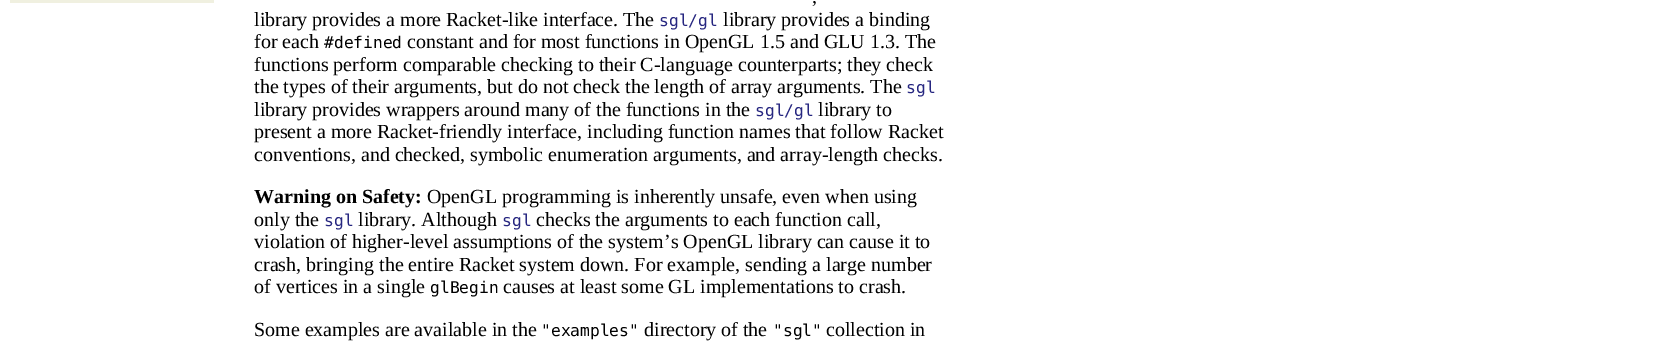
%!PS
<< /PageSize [1653 347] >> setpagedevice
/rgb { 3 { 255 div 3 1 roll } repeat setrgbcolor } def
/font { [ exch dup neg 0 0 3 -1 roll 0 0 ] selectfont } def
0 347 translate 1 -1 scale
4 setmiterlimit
255 255 255 rgb
0 0 1653 347 rectfill
240 240 224 rgb
10 0 204 3 rectfill
/LiberationSerif-Regular 20 font
0 0 0 rgb
812 3 moveto (,) show
254 26 moveto (library provides a more Racket-like interface. The) show
/DejaVuSansMono-Regular 16.25 font
38 38 128 rgb
659 26 moveto (sgl/gl) show
/LiberationSerif-Regular 20 font
0 0 0 rgb
723 26 moveto (library provides a binding) show
254 48 moveto (for each) show
/DejaVuSansMono-Regular 16.25 font
324 48 moveto (#defined) show
/LiberationSerif-Regular 20 font
[
  [(constant and for most functions in OpenGL 1.5 and GLU 1.3. The) 407 48]
  [(functions perform comparable checking to their C-language counterparts; they check) 254 71]
  [(the types of their arguments, but do not check the length of array arguments. The) 254 93]
] { aload pop moveto show } forall
/DejaVuSansMono-Regular 16.25 font
38 38 128 rgb
906 93 moveto (sgl) show
/LiberationSerif-Regular 20 font
0 0 0 rgb
254 116 moveto (library provides wrappers around many of the functions in the) show
/DejaVuSansMono-Regular 16.25 font
38 38 128 rgb
755 116 moveto (sgl/gl) show
/LiberationSerif-Regular 20 font
0 0 0 rgb
[
  [(library to) 818 116]
  [(present a more Racket-friendly interface, including function names that follow Racket) 254 138]
  [(conventions, and checked, symbolic enumeration arguments, and array-length checks.) 254 161]
] { aload pop moveto show } forall
/LiberationSerif-Bold 20 font
254 203 moveto (Warning on Safety:) show
/LiberationSerif-Regular 20 font
427 203 moveto (OpenGL programming is inherently unsafe, even when using) show
254 226 moveto (only the) show
/DejaVuSansMono-Regular 16.25 font
38 38 128 rgb
324 226 moveto (sgl) show
/LiberationSerif-Regular 20 font
0 0 0 rgb
358 226 moveto (library. Although) show
/DejaVuSansMono-Regular 16.25 font
38 38 128 rgb
502 226 moveto (sgl) show
/LiberationSerif-Regular 20 font
0 0 0 rgb
[
  [(checks the arguments to each function call,) 536 226]
  [(violation of higher-level assumptions of the system’s OpenGL library can cause it to) 254 248]
  [(crash, bringing the entire Racket system down. For example, sending a large number) 254 271]
  [(of vertices in a single) 254 293]
] { aload pop moveto show } forall
/DejaVuSansMono-Regular 16.25 font
430 293 moveto (glBegin) show
/LiberationSerif-Regular 20 font
503 293 moveto (causes at least some GL implementations to crash.) show
254 336 moveto (Some examples are available in the) show
/DejaVuSansMono-Regular 16.25 font
541 336 moveto ("examples") show
/LiberationSerif-Regular 20 font
644 336 moveto (directory of the) show
/DejaVuSansMono-Regular 16.25 font
773 336 moveto ("sgl") show
/LiberationSerif-Regular 20 font
826 336 moveto (collection in) show
showpage
